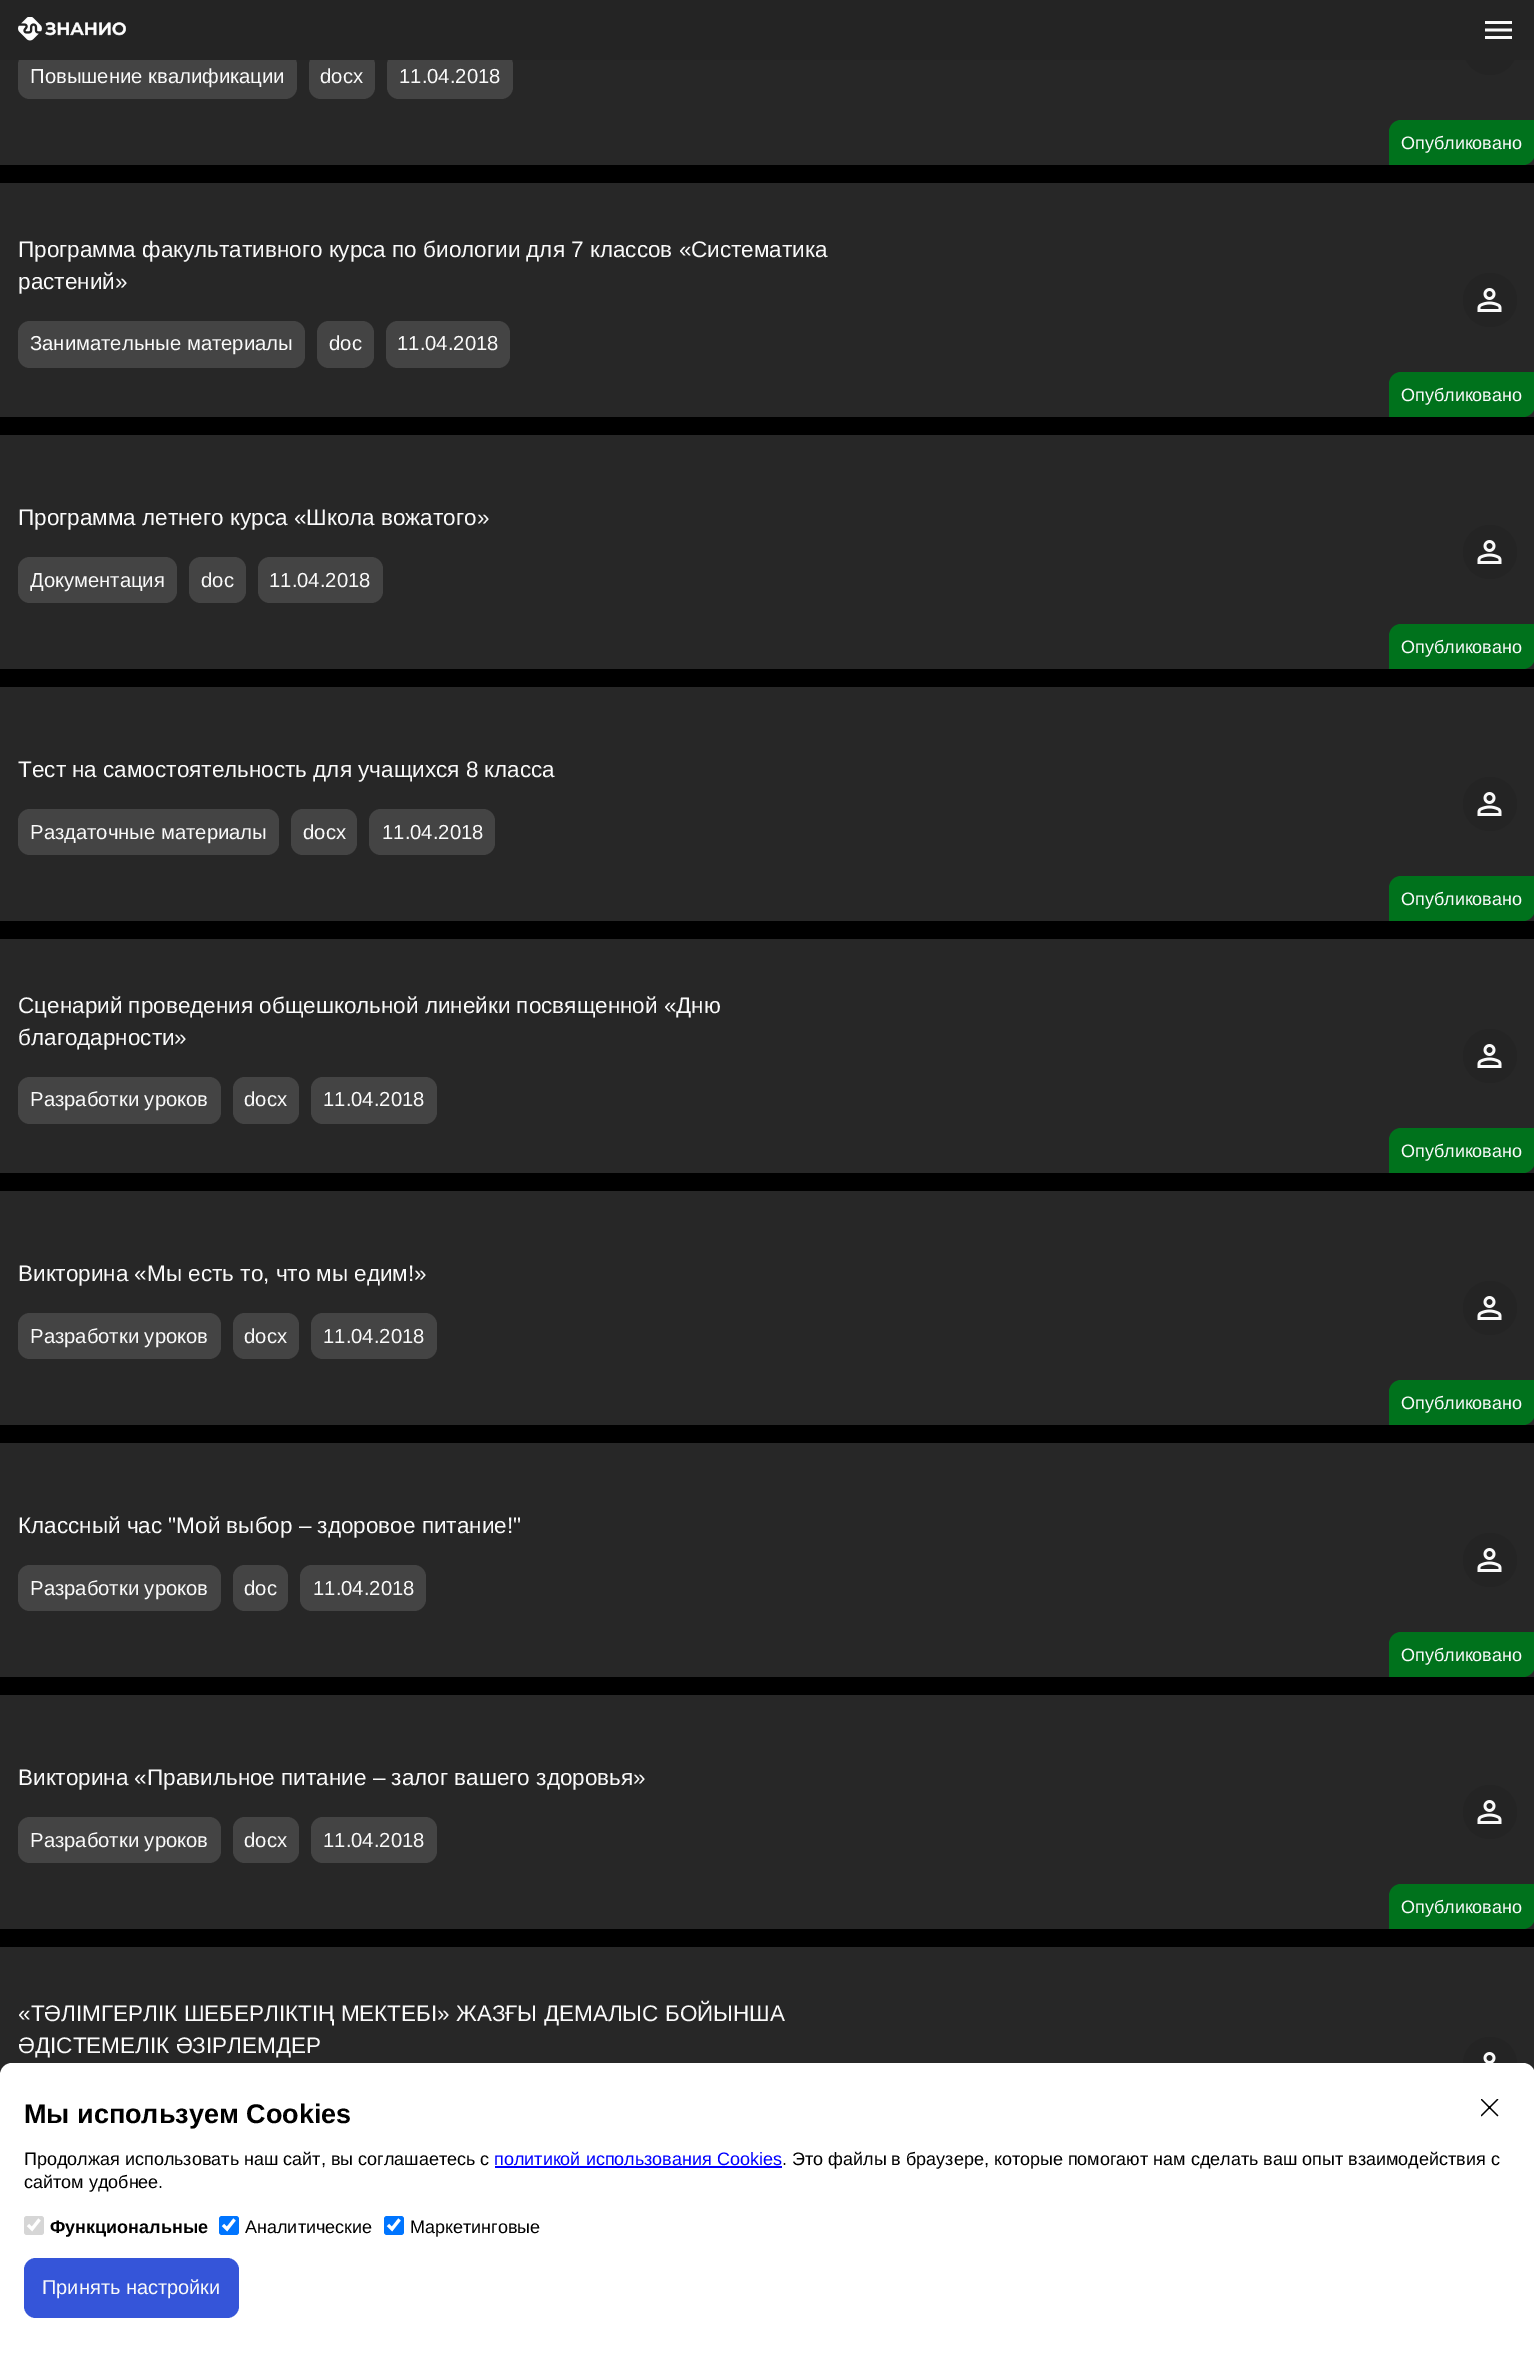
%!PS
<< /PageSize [1534 2353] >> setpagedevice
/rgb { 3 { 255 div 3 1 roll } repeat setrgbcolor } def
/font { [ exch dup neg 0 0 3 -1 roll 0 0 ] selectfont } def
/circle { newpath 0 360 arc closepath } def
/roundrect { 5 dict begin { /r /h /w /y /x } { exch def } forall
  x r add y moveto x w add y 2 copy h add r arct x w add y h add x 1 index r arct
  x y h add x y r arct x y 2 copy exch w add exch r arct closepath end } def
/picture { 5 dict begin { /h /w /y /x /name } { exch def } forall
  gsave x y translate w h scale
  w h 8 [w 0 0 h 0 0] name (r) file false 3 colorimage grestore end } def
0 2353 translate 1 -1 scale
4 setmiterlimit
0 0 0 rgb
0 0 1534 2353 rectfill
39 39 39 rgb
0 60 1534 105 rectfill
36 36 36 rgb
1490 48 27 circle fill
68 68 68 rgb
18 53 279 46 12 roundrect fill
309 53 66 46 12 roundrect fill
387 53 126 46 12 roundrect fill
36 36 36 rgb
0 0 1534 60 rectfill
(img/1.rgb) 18 17 108 24 picture
(img/2.rgb) 1485 21 27 18 picture
0 114 28 rgb
1401 120 moveto 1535 120 lineto 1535 153 lineto 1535 159.5 1529.5 165 1523 165 curveto 1389 165 lineto 1389 132 lineto 1389 125.5 1394.5 120 1401 120 curveto closepath fill
39 39 39 rgb
0 183 1534 234 rectfill
68 68 68 rgb
18 321 287 47 12 roundrect fill
317 321 57 47 12 roundrect fill
386 321 124 47 12 roundrect fill
36 36 36 rgb
1490 300 27 circle fill
(img/3.rgb) 1477 288 25 24 picture
0 114 28 rgb
1401 372 moveto 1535 372 lineto 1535 405 lineto 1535 411.5 1529.5 417 1523 417 curveto 1389 417 lineto 1389 384 lineto 1389 377.5 1394.5 372 1401 372 curveto closepath fill
39 39 39 rgb
0 435 1534 234 rectfill
68 68 68 rgb
18 557 159 46 12 roundrect fill
189 557 57 46 12 roundrect fill
258 557 125 46 12 roundrect fill
36 36 36 rgb
1490 552 27 circle fill
(img/3.rgb) 1477 540 25 24 picture
0 114 28 rgb
1401 624 moveto 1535 624 lineto 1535 657 lineto 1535 663.5 1529.5 669 1523 669 curveto 1389 669 lineto 1389 636 lineto 1389 629.5 1394.5 624 1401 624 curveto closepath fill
39 39 39 rgb
0 687 1534 234 rectfill
68 68 68 rgb
18 809 261 46 12 roundrect fill
291 809 66 46 12 roundrect fill
369 809 126 46 12 roundrect fill
36 36 36 rgb
1490 804 27 circle fill
(img/3.rgb) 1477 792 25 24 picture
0 114 28 rgb
1401 876 moveto 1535 876 lineto 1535 909 lineto 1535 915.5 1529.5 921 1523 921 curveto 1389 921 lineto 1389 888 lineto 1389 881.5 1394.5 876 1401 876 curveto closepath fill
39 39 39 rgb
0 939 1534 234 rectfill
68 68 68 rgb
18 1077 203 47 12 roundrect fill
233 1077 66 47 12 roundrect fill
311 1077 126 47 12 roundrect fill
36 36 36 rgb
1490 1056 27 circle fill
(img/3.rgb) 1477 1044 25 24 picture
0 114 28 rgb
1401 1128 moveto 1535 1128 lineto 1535 1161 lineto 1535 1167.5 1529.5 1173 1523 1173 curveto 1389 1173 lineto 1389 1140 lineto 1389 1133.5 1394.5 1128 1401 1128 curveto closepath fill
39 39 39 rgb
0 1191 1534 234 rectfill
68 68 68 rgb
18 1313 203 46 12 roundrect fill
233 1313 66 46 12 roundrect fill
311 1313 126 46 12 roundrect fill
36 36 36 rgb
1490 1308 27 circle fill
(img/3.rgb) 1477 1296 25 24 picture
0 114 28 rgb
1401 1380 moveto 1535 1380 lineto 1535 1413 lineto 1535 1419.5 1529.5 1425 1523 1425 curveto 1389 1425 lineto 1389 1392 lineto 1389 1385.5 1394.5 1380 1401 1380 curveto closepath fill
39 39 39 rgb
0 1443 1534 234 rectfill
68 68 68 rgb
18 1565 203 46 12 roundrect fill
233 1565 55 46 12 roundrect fill
300 1565 126 46 12 roundrect fill
36 36 36 rgb
1490 1560 27 circle fill
(img/3.rgb) 1477 1548 25 24 picture
0 114 28 rgb
1401 1632 moveto 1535 1632 lineto 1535 1665 lineto 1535 1671.5 1529.5 1677 1523 1677 curveto 1389 1677 lineto 1389 1644 lineto 1389 1637.5 1394.5 1632 1401 1632 curveto closepath fill
39 39 39 rgb
0 1695 1534 234 rectfill
68 68 68 rgb
18 1817 203 46 12 roundrect fill
233 1817 66 46 12 roundrect fill
311 1817 126 46 12 roundrect fill
36 36 36 rgb
1490 1812 27 circle fill
(img/3.rgb) 1477 1800 25 24 picture
0 114 28 rgb
1401 1884 moveto 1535 1884 lineto 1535 1917 lineto 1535 1923.5 1529.5 1929 1523 1929 curveto 1389 1929 lineto 1389 1896 lineto 1389 1889.5 1394.5 1884 1401 1884 curveto closepath fill
39 39 39 rgb
0 1947 1534 128 rectfill
36 36 36 rgb
1490 2064 27 circle fill
(img/4.rgb) 1483 2052 13 11 picture
255 255 255 rgb
12 2063 moveto 1523 2063 lineto 1529.5 2063 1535 2068.5 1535 2075 curveto 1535 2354 lineto 0 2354 lineto 0 2075 lineto 0 2068.5 5.5 2063 12 2063 curveto closepath fill
(img/5.rgb) 1481 2099 18 18 picture
0 0 255 rgb
495 2166 287 2 rectfill
214 214 214 rgb
24 2216 20 19 3 roundrect fill
255 255 255 rgb
3.1 setlinewidth
28 2225 moveto 32 2229 lineto 39.5 2219.5 lineto stroke
0 117 255 rgb
219 2216 20 19 3 roundrect fill
255 255 255 rgb
223 2225 moveto 227 2229 lineto 234.5 2219.5 lineto stroke
0 117 255 rgb
384 2216 20 19 3 roundrect fill
255 255 255 rgb
388 2225 moveto 392 2229 lineto 399.5 2219.5 lineto stroke
53 85 217 rgb
24 2258 215 60 12 roundrect fill
/LiberationSans-Regular 20.25 font
250 250 250 rgb
[
  [(Повышение квалификации) 30 83]
  [(docx) 320 83]
  [(11.04.2018) 399 83]
] { aload pop moveto show } forall
/LiberationSans-Regular 18 font
1401 149 moveto (Опубликовано) show
/LiberationSans-Regular 22.5 font
18 257 moveto (Программа факультативного курса по биологии для 7 классов «Систематика) show
18 289 moveto (растений») show
/LiberationSans-Regular 20.25 font
[
  [(Занимательные материалы) 30 350]
  [(doc) 329 350]
  [(11.04.2018) 397 350]
] { aload pop moveto show } forall
/LiberationSans-Regular 18 font
1401 401 moveto (Опубликовано) show
/LiberationSans-Regular 22.5 font
18 525 moveto (Программа летнего курса «Школа вожатого») show
/LiberationSans-Regular 20.25 font
[
  [(Документация) 30 587]
  [(doc) 201 587]
  [(11.04.2018) 269 587]
] { aload pop moveto show } forall
/LiberationSans-Regular 18 font
1401 653 moveto (Опубликовано) show
/LiberationSans-Regular 22.5 font
18 777 moveto (Тест на самостоятельность для учащихся 8 класса) show
/LiberationSans-Regular 20.25 font
[
  [(Раздаточные материалы) 30 839]
  [(docx) 303 839]
  [(11.04.2018) 382 839]
] { aload pop moveto show } forall
/LiberationSans-Regular 18 font
1401 905 moveto (Опубликовано) show
/LiberationSans-Regular 22.5 font
18 1013 moveto (Сценарий проведения общешкольной линейки посвященной «Дню) show
18 1045 moveto (благодарности») show
/LiberationSans-Regular 20.25 font
[
  [(Разработки уроков) 30 1106]
  [(docx) 244 1106]
  [(11.04.2018) 323 1106]
] { aload pop moveto show } forall
/LiberationSans-Regular 18 font
1401 1157 moveto (Опубликовано) show
/LiberationSans-Regular 22.5 font
18 1281 moveto (Викторина «Мы есть то, что мы едим!») show
/LiberationSans-Regular 20.25 font
[
  [(Разработки уроков) 30 1343]
  [(docx) 244 1343]
  [(11.04.2018) 323 1343]
] { aload pop moveto show } forall
/LiberationSans-Regular 18 font
1401 1409 moveto (Опубликовано) show
/LiberationSans-Regular 22.5 font
18 1533 moveto (Классный час "Мой выбор – здоровое питание!") show
/LiberationSans-Regular 20.25 font
[
  [(Разработки уроков) 30 1595]
  [(doc) 244 1595]
  [(11.04.2018) 313 1595]
] { aload pop moveto show } forall
/LiberationSans-Regular 18 font
1401 1661 moveto (Опубликовано) show
/LiberationSans-Regular 22.5 font
18 1785 moveto (Викторина «Правильное питание – залог вашего здоровья») show
/LiberationSans-Regular 20.25 font
[
  [(Разработки уроков) 30 1847]
  [(docx) 244 1847]
  [(11.04.2018) 323 1847]
] { aload pop moveto show } forall
/LiberationSans-Regular 18 font
1401 1913 moveto (Опубликовано) show
/LiberationSans-Regular 22.5 font
18 2021 moveto («ТӘЛІМГЕРЛІК ШЕБЕРЛІКТІҢ МЕКТЕБІ» ЖАЗҒЫ ДЕМАЛЫС БОЙЫНША) show
18 2053 moveto (ӘДІСТЕМЕЛІК ӘЗІРЛЕМДЕР) show
/LiberationSans-Bold 27 font
0 0 0 rgb
24 2123 moveto (Мы используем Cookies) show
/LiberationSans-Regular 18 font
24 2165 moveto (Продолжая использовать наш сайт, вы соглашаетесь с) show
0 0 255 rgb
494 2165 moveto (политикой использования Cookies) show
0 0 0 rgb
782 2165 moveto (. Это файлы в браузере, которые помогают нам сделать ваш опыт взаимодействия с) show
24 2188 moveto (сайтом удобнее.) show
/LiberationSans-Bold 18 font
50 2233 moveto (Функциональные) show
/LiberationSans-Regular 18 font
245 2233 moveto (Аналитические) show
410 2233 moveto (Маркетинговые) show
/LiberationSans-Regular 20 font
250 250 250 rgb
42 2294 moveto (Принять настройки) show
showpage
